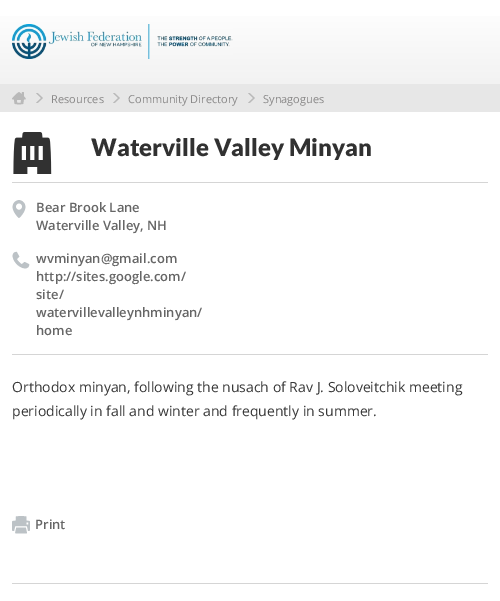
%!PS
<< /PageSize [500 601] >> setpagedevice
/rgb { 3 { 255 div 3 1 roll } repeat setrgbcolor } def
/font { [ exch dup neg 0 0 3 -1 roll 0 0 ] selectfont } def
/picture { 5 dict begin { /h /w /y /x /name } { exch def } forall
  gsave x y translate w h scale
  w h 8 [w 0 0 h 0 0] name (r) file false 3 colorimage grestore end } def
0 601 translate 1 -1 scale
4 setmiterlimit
255 255 255 rgb
0 0 500 601 rectfill
gsave 0 16 moveto 500 16 lineto 500 84 lineto 0 84 lineto closepath clip newpath
<< /ShadingType 2 /ColorSpace /DeviceRGB /Coords [250 0 250 84] /Extend [true true] /Function << /FunctionType 2 /Domain [0 1] /C0 [1 1 1] /C1 [0.949 0.949 0.949] /N 1 >> >> shfill grestore
(img/1.rgb) 12 24 221 35 picture
231 231 231 rgb
0 84 500 28 rectfill
(img/2.rgb) 12 92 14 13 picture
(img/3.rgb) 36 93 7 10 picture
(img/3.rgb) 113 93 7 10 picture
(img/3.rgb) 248 93 7 10 picture
(img/4.rgb) 13 132 39 42 picture
213 213 213 rgb
12 182 476 1 rectfill
(img/5.rgb) 12 200 14 18 picture
(img/6.rgb) 12 251 18 18 picture
12 354 476 1 rectfill
(img/7.rgb) 12 516 18 18 picture
12 583 476 1 rectfill
/OpenSans-Regular 11 font
138 137 137 rgb
[
  [(Resources) 51 103]
  [(Community Directory) 128 103]
  [(Synagogues) 263 103]
] { aload pop moveto show } forall
/Lato-Black 24 font
49 49 49 rgb
91 156 moveto (Waterville Valley Minyan) show
/OpenSans-SemiBold 13 font
102 102 102 rgb
[
  [(Bear Brook Lane) 36 212]
  [(Waterville Valley, NH) 36 230]
  [(wvminyan@gmail.com) 36 263]
  [(http://sites.google.com/) 36 281]
  [(site/) 36 299]
  [(watervillevalleynhminyan/) 36 317]
  [(home) 36 335]
] { aload pop moveto show } forall
/OpenSans-Regular 14 font
56 56 56 rgb
12 392 moveto (Orthodox minyan, following the nusach of Rav J. Soloveitchik meeting) show
12 416 moveto (periodically in fall and winter and frequently in summer.) show
/OpenSans-SemiBold 13 font
102 102 102 rgb
35 529 moveto (Print) show
showpage
